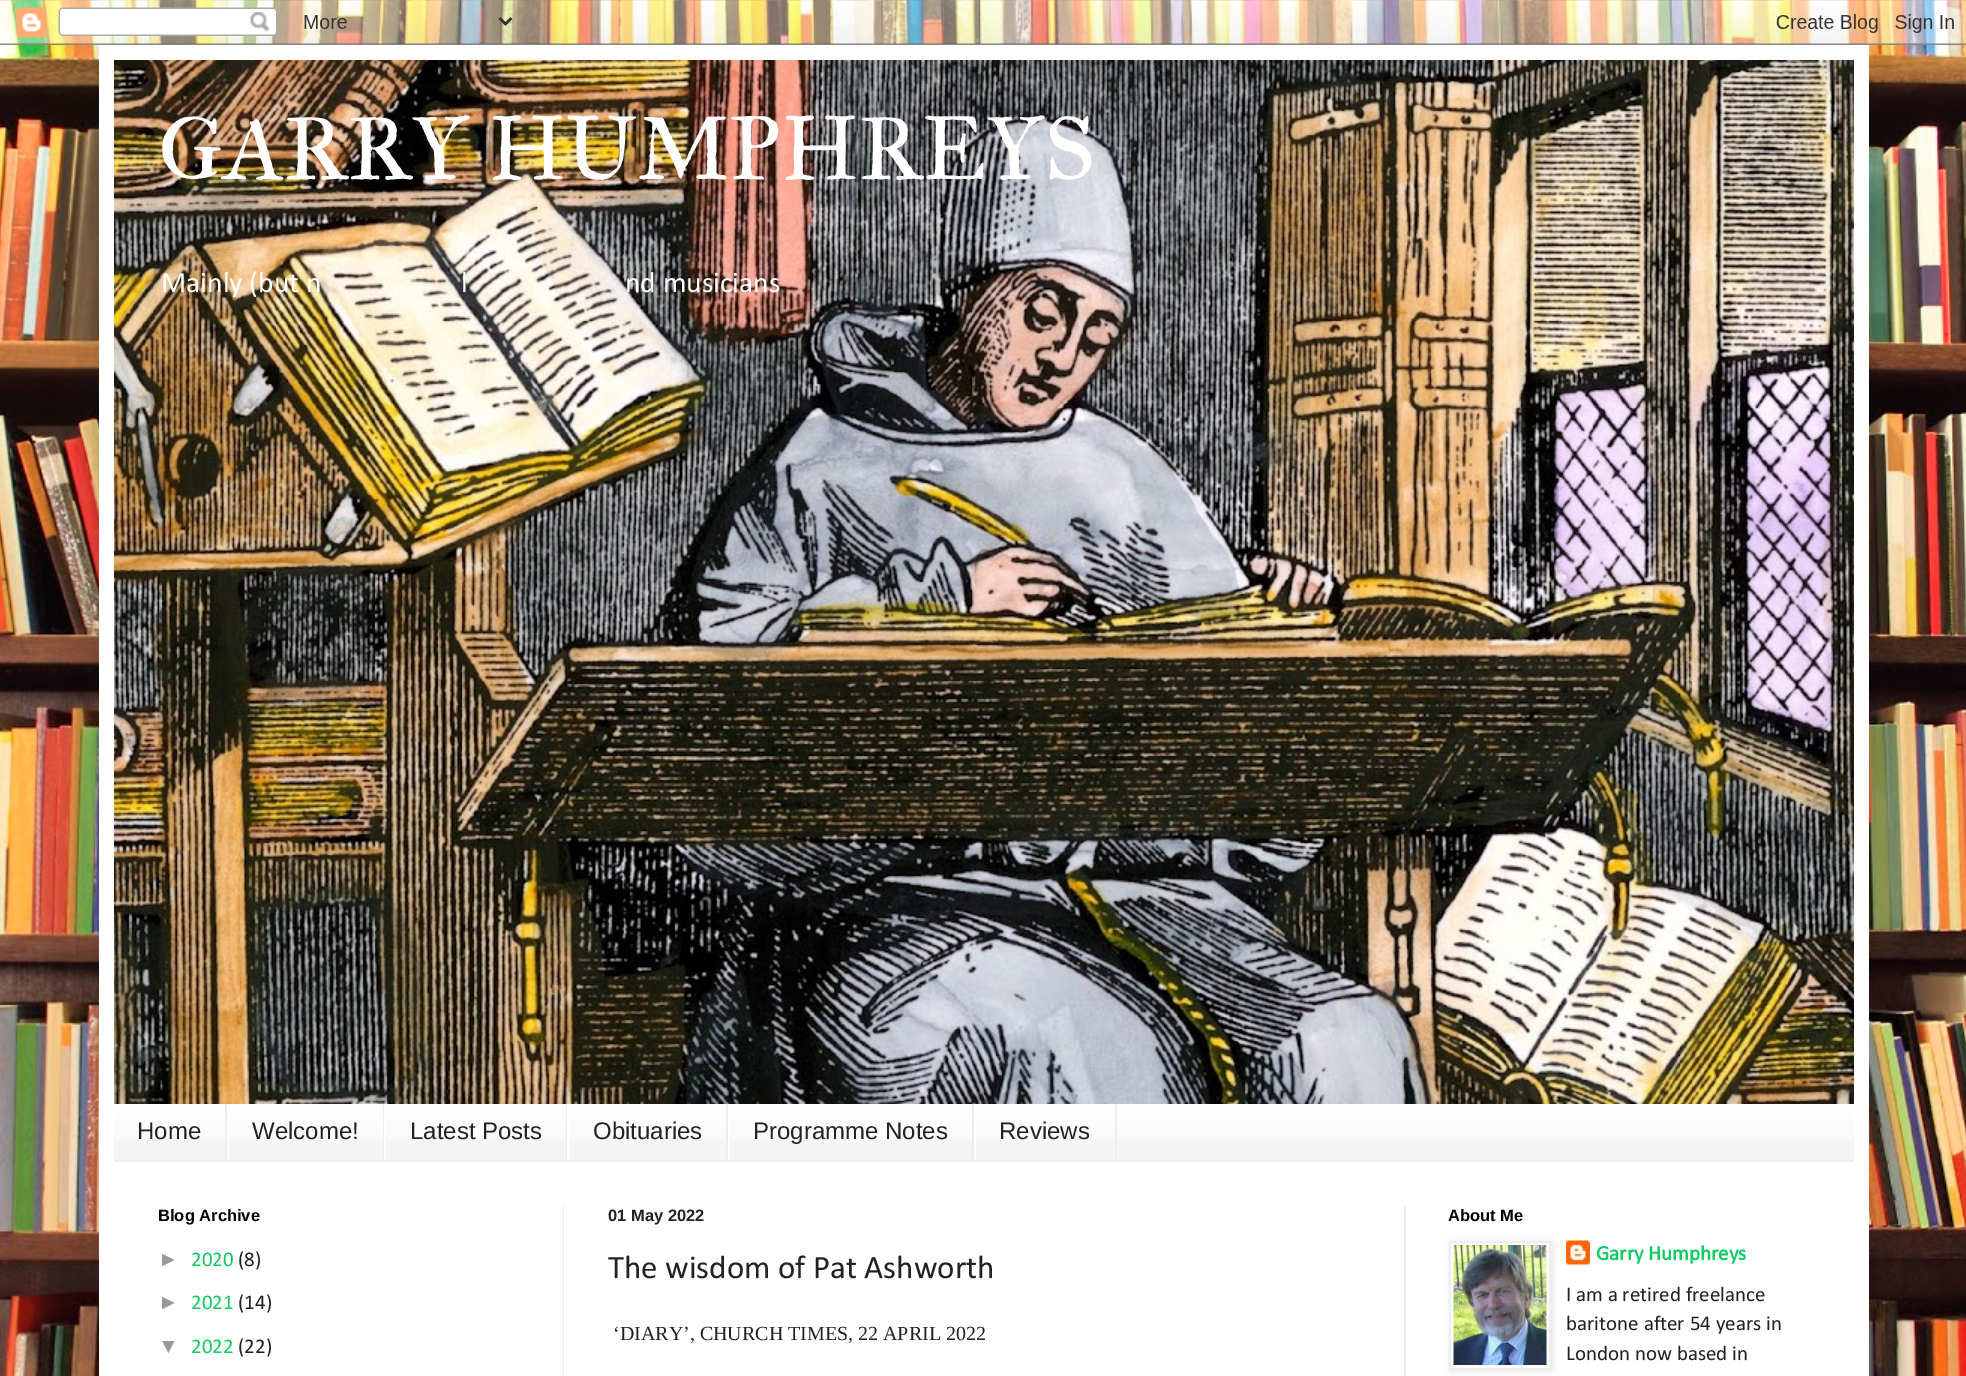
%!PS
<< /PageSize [1966 1376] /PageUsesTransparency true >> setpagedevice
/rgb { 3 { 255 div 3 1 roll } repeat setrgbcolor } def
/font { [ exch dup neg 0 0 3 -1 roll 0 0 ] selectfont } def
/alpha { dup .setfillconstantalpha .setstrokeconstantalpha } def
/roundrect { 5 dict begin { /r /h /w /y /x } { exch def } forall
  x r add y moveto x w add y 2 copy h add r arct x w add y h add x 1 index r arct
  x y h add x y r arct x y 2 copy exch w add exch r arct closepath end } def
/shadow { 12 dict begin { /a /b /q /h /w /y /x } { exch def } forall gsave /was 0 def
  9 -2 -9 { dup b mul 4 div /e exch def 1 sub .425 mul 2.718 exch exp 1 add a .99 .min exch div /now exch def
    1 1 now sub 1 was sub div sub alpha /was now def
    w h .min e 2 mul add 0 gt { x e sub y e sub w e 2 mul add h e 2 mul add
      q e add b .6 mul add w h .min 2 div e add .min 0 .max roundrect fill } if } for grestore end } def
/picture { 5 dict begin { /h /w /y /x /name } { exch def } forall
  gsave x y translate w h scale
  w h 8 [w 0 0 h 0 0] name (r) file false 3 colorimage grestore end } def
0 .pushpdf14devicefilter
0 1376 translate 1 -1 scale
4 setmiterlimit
255 255 255 rgb
0 0 1966 1376 rectfill
(img/1.rgb) 0 0 1966 1376 picture
0 0 0 rgb
99 45 1770 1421 0 30 0.15 shadow
(img/2.rgb) 0 0 1966 45 picture
255 255 255 rgb
99 45 1770 1331 rectfill
(img/3.rgb) 114 60 1740 1044 picture
245 245 245 rgb
114 1104 1740 56 rectfill
(img/4.rgb) 114 1104 1740 36 picture
[
  [114 1160 1740 2 238 238 238]
  [225 1104 2 56 238 238 238]
  [383 1104 1 56 238 238 238]
  [227 1120 2 40 255 255 255]
  [566 1104 1 56 238 238 238]
  [384 1120 2 40 255 255 255]
  [726 1104 2 56 238 238 238]
  [567 1120 2 40 255 255 255]
  [972 1104 2 56 238 238 238]
  [728 1120 2 40 255 255 255]
  [1115 1104 2 56 238 238 238]
  [974 1120 2 40 255 255 255]
  [563 1206 1 170 238 238 238]
  [1404 1206 2 170 238 238 238]
] { aload pop rgb rectfill } forall
0 0 0 rgb
1451 1242 102 129 0 4 0.1 shadow
255 255 255 rgb
1450 1242 moveto 1550 1242 lineto 1550 1369 lineto 1450 1369 lineto closepath gsave fill grestore
238 238 238 rgb
2 setlinewidth
stroke
(img/5.rgb) 1453 1245 94 120 picture
(img/6.rgb) 1566 1240 24 25 picture
/IMFELLGreatPrimerSC-Regular 90 font
255 255 255 rgb
158 179 moveto (GARRY HUMPHREYS) show
/Calibri-Regular 29.5 font
[
  [(Mainly \(but n) 161 292]
  [(l) 461 292]
  [(nd musicians) 625 292]
] { aload pop moveto show } forall
/LiberationSans-Regular 24 font
34 34 34 rgb
[
  [(Home) 137 1139]
  [(Welcome!) 252 1139]
  [(Latest Posts) 410 1139]
  [(Obituaries) 593 1139]
  [(Programme Notes) 753 1139]
  [(Reviews) 999 1139]
] { aload pop moveto show } forall
/LiberationSans-Bold 16.5 font
0 0 0 rgb
158 1221 moveto (Blog Archive) show
/LiberationSans-Regular 21 font
153 153 153 rgb
158 1266 moveto (►) show
/Calibri-Regular 21 font
17 204 100 rgb
191 1266 moveto (2020) show
34 34 34 rgb
238 1266 moveto (\(8\)) show
/LiberationSans-Regular 21 font
153 153 153 rgb
158 1309 moveto (►) show
/Calibri-Regular 21 font
17 204 100 rgb
191 1309 moveto (2021) show
34 34 34 rgb
238 1309 moveto (\(14\)) show
/LiberationSans-Regular 21 font
153 153 153 rgb
158 1353 moveto (▼) show
/Calibri-Regular 21 font
17 204 100 rgb
191 1353 moveto (2022) show
34 34 34 rgb
238 1353 moveto (\(22\)) show
/LiberationSans-Bold 16.5 font
608 1221 moveto (01 May 2022) show
/Calibri-Regular 33 font
608 1278 moveto (The wisdom of Pat Ashworth) show
/LiberationSerif-Regular 20 font
613 1340 moveto (‘DIARY’, CHURCH TIMES, 22 APRIL 2022) show
/LiberationSans-Bold 16.5 font
0 0 0 rgb
1448 1221 moveto (About Me) show
/Calibri-Bold 21 font
17 204 100 rgb
1596 1260 moveto (Garry Humphreys) show
/Calibri-Regular 21 font
34 34 34 rgb
[
  [(I am a retired freelance) 1566 1301]
  [(baritone after 54 years in) 1566 1330]
  [(London now based in) 1566 1360]
] { aload pop moveto show } forall
.poppdf14devicefilter showpage
